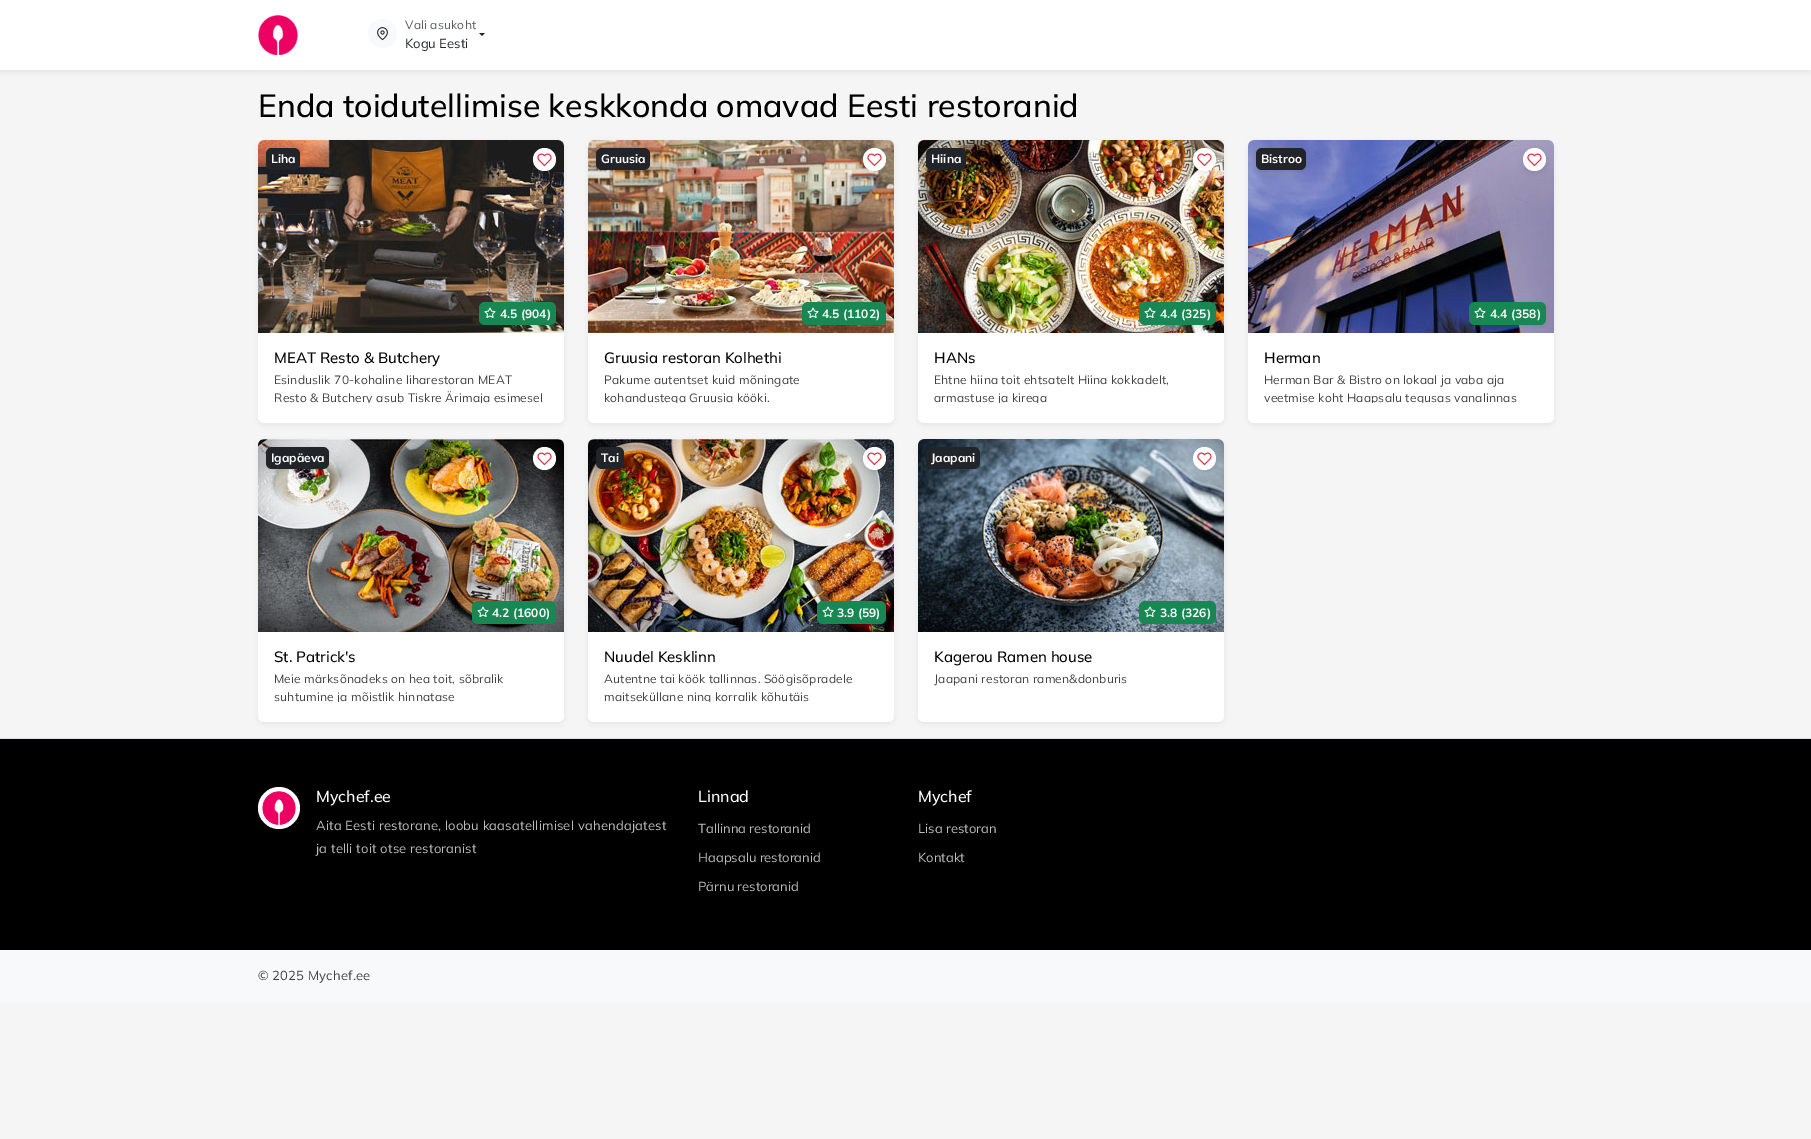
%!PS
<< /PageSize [1811 1139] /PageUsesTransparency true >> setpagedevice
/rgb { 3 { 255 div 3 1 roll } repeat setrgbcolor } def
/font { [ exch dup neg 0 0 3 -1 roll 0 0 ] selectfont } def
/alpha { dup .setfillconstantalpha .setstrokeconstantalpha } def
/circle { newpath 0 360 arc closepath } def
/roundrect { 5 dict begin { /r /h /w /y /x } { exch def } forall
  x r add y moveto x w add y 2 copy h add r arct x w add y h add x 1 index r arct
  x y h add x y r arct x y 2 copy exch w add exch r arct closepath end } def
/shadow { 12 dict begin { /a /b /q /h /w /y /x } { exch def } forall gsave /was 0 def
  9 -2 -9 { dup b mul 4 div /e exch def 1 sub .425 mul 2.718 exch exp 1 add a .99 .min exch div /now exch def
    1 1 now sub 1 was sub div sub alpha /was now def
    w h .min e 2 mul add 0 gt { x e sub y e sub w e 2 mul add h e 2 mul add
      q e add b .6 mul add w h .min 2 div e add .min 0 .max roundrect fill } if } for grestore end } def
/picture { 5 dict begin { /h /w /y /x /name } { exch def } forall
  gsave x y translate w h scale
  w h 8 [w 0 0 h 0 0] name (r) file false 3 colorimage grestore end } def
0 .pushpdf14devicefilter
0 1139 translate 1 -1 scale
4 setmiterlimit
245 245 245 rgb
0 0 1811 1139 rectfill
33 37 41 rgb
0 2 1811 70 0 2 0.07 shadow
255 255 255 rgb
0 0 1811 70 rectfill
(img/1.rgb) 258 15 40 40 picture
248 249 250 rgb
382.5 33.5 14.5 circle fill
(img/2.rgb) 377 27 11 14 picture
33 37 41 rgb
479 33 moveto 485 33 lineto 482 36 lineto closepath fill
258 142 306 283 6 2 0.07 shadow
255 255 255 rgb
258 140 306 283 6 roundrect fill
(img/3.rgb) 258 140 306 193 picture
0 0 0 rgb
266 150 34 22 6 2 0.07 shadow
33 37 41 rgb
266 148 34 22 6 roundrect fill
255 255 255 rgb
544.5 159.5 11.5 circle fill
(img/4.rgb) 537 153 15 14 picture
0 0 0 rgb
479 304 77 23 6 2 0.07 shadow
25 135 84 rgb
479 302 77 23 6 roundrect fill
(img/5.rgb) 484 307 12 11 picture
33 37 41 rgb
588 142 306 283 6 2 0.07 shadow
255 255 255 rgb
588 140 306 283 6 roundrect fill
(img/6.rgb) 588 140 306 193 picture
0 0 0 rgb
596 150 54 22 6 2 0.07 shadow
33 37 41 rgb
596 148 54 22 6 roundrect fill
0 0 0 rgb
863 150 23 23 11.5 2 0.07 shadow
255 255 255 rgb
874.5 159.5 11.5 circle fill
(img/4.rgb) 867 153 15 14 picture
0 0 0 rgb
802 304 84 23 6 2 0.07 shadow
25 135 84 rgb
802 302 84 23 6 roundrect fill
(img/5.rgb) 807 307 12 11 picture
33 37 41 rgb
918 142 306 283 6 2 0.07 shadow
255 255 255 rgb
918 140 306 283 6 roundrect fill
(img/7.rgb) 918 140 306 193 picture
0 0 0 rgb
926 150 40 22 6 2 0.07 shadow
33 37 41 rgb
926 148 40 22 6 roundrect fill
0 0 0 rgb
1193 150 23 23 11.5 2 0.07 shadow
255 255 255 rgb
1204.5 159.5 11.5 circle fill
(img/4.rgb) 1197 153 15 14 picture
0 0 0 rgb
1139 304 77 23 6 2 0.07 shadow
25 135 84 rgb
1139 302 77 23 6 roundrect fill
(img/5.rgb) 1144 307 12 11 picture
33 37 41 rgb
1248 142 306 283 6 2 0.07 shadow
255 255 255 rgb
1248 140 306 283 6 roundrect fill
(img/8.rgb) 1248 140 306 193 picture
0 0 0 rgb
1256 150 50 22 6 2 0.07 shadow
33 37 41 rgb
1256 148 50 22 6 roundrect fill
0 0 0 rgb
1523 150 23 23 11.5 2 0.07 shadow
255 255 255 rgb
1534.5 159.5 11.5 circle fill
(img/4.rgb) 1527 153 15 14 picture
0 0 0 rgb
1469 304 77 23 6 2 0.07 shadow
25 135 84 rgb
1469 302 77 23 6 roundrect fill
(img/5.rgb) 1474 307 12 11 picture
33 37 41 rgb
258 441 306 283 6 2 0.07 shadow
255 255 255 rgb
258 439 306 283 6 roundrect fill
(img/9.rgb) 258 439 306 193 picture
0 0 0 rgb
266 449 63 22 6 2 0.07 shadow
33 37 41 rgb
266 447 63 22 6 roundrect fill
255 255 255 rgb
544.5 458.5 11.5 circle fill
(img/4.rgb) 537 452 15 14 picture
0 0 0 rgb
472 603 84 23 6 2 0.07 shadow
25 135 84 rgb
472 601 84 23 6 roundrect fill
(img/5.rgb) 477 606 12 11 picture
33 37 41 rgb
588 441 306 283 6 2 0.07 shadow
255 255 255 rgb
588 439 306 283 6 roundrect fill
(img/10.rgb) 588 439 306 193 picture
0 0 0 rgb
596 449 28 22 6 2 0.07 shadow
33 37 41 rgb
596 447 28 22 6 roundrect fill
0 0 0 rgb
863 449 23 23 11.5 2 0.07 shadow
255 255 255 rgb
874.5 458.5 11.5 circle fill
(img/4.rgb) 867 452 15 14 picture
0 0 0 rgb
817 603 69 23 6 2 0.07 shadow
25 135 84 rgb
817 601 69 23 6 roundrect fill
(img/5.rgb) 822 606 12 11 picture
33 37 41 rgb
918 441 306 283 6 2 0.07 shadow
255 255 255 rgb
918 439 306 283 6 roundrect fill
(img/11.rgb) 918 439 306 193 picture
33 37 41 rgb
926 447 54 22 6 roundrect fill
0 0 0 rgb
1193 449 23 23 11.5 2 0.07 shadow
255 255 255 rgb
1204.5 458.5 11.5 circle fill
(img/4.rgb) 1197 452 15 14 picture
0 0 0 rgb
1139 603 77 23 6 2 0.07 shadow
25 135 84 rgb
1139 601 77 23 6 roundrect fill
(img/5.rgb) 1144 606 12 11 picture
0 0 0 rgb
0 739 1811 211 rectfill
222 226 230 rgb
0 738 1811 1 rectfill
255 255 255 rgb
279 808 21 circle fill
(img/12.rgb) 262 791 34 34 picture
248 249 250 rgb
0 950 1811 52 rectfill
/Mulish-Regular 12 font
89 92 95 rgb
405 29 moveto 0.2 0 (Vali asukoht) ashow
/Mulish-Regular 13 font
33 37 41 rgb
405 48 moveto (Kogu Eesti) show
/Mulish-Medium 32 font
0 0 0 rgb
258 117 moveto (Enda toidutellimise keskkonda omavad Eesti restoranid) show
/Mulish-Bold 12 font
255 255 255 rgb
271 163 moveto (Liha) show
500 318 moveto (4.5 \(904\)) show
/Mulish-Medium 15 font
0 0 0 rgb
274 363 moveto (MEAT Resto & Butchery) show
/Mulish-Regular 12 font
66 66 66 rgb
274 384 moveto 0.2 0 (Esinduslik 70-kohaline liharestoran MEAT) ashow
gsave
274 371 274 32 rectclip
274 402 moveto 0.2 0 (Resto & Butchery asub Tiskre Ärimaja esimesel) ashow
grestore
/Mulish-Bold 12 font
255 255 255 rgb
601 163 moveto (Gruusia) show
822 318 moveto (4.5 \(1102\)) show
/Mulish-Medium 15 font
0 0 0 rgb
604 363 moveto (Gruusia restoran Kolhethi) show
/Mulish-Regular 12 font
66 66 66 rgb
604 384 moveto 0.2 0 (Pakume autentset kuid mõningate) ashow
gsave
604 371 274 32 rectclip
604 402 moveto 0.2 0 (kohandustega Gruusia kööki.) ashow
grestore
/Mulish-Bold 12 font
255 255 255 rgb
931 163 moveto (Hiina) show
1160 318 moveto (4.4 \(325\)) show
/Mulish-Medium 15 font
0 0 0 rgb
934 363 moveto (HANs) show
/Mulish-Regular 12 font
66 66 66 rgb
934 384 moveto 0.2 0 (Ehtne hiina toit ehtsatelt Hiina kokkadelt,) ashow
gsave
934 371 274 32 rectclip
934 402 moveto 0.2 0 (armastuse ja kirega) ashow
grestore
/Mulish-Bold 12 font
255 255 255 rgb
1261 163 moveto (Bistroo) show
1490 318 moveto (4.4 \(358\)) show
/Mulish-Medium 15 font
0 0 0 rgb
1264 363 moveto (Herman) show
/Mulish-Regular 12 font
66 66 66 rgb
1264 384 moveto 0.2 0 (Herman Bar & Bistro on lokaal ja vaba aja) ashow
gsave
1264 371 274 32 rectclip
1264 402 moveto 0.2 0 (veetmise koht Haapsalu tegusas vanalinnas) ashow
grestore
/Mulish-Bold 12 font
255 255 255 rgb
271 462 moveto (Igapäeva) show
492 617 moveto (4.2 \(1600\)) show
/Mulish-Medium 15 font
0 0 0 rgb
274 662 moveto (St. Patrick's) show
/Mulish-Regular 12 font
66 66 66 rgb
274 683 moveto 0.2 0 (Meie märksõnadeks on hea toit, sõbralik) ashow
gsave
274 670 274 32 rectclip
274 701 moveto 0.2 0 (suhtumine ja mõistlik hinnatase) ashow
grestore
/Mulish-Bold 12 font
255 255 255 rgb
601 462 moveto (Tai) show
837 617 moveto (3.9 \(59\)) show
/Mulish-Medium 15 font
0 0 0 rgb
604 662 moveto (Nuudel Kesklinn) show
/Mulish-Regular 12 font
66 66 66 rgb
604 683 moveto 0.2 0 (Autentne tai köök tallinnas. Söögisõpradele) ashow
gsave
604 670 274 32 rectclip
604 701 moveto 0.2 0 (maitseküllane ning korralik kõhutäis) ashow
grestore
/Mulish-Bold 12 font
255 255 255 rgb
931 462 moveto (Jaapani) show
1160 617 moveto (3.8 \(326\)) show
/Mulish-Medium 15 font
0 0 0 rgb
934 662 moveto (Kagerou Ramen house) show
/Mulish-Regular 12 font
66 66 66 rgb
934 683 moveto 0.2 0 (Jaapani restoran ramen&donburis) ashow
/Mulish-Medium 16 font
255 255 255 rgb
316 802 moveto (Mychef.ee) show
/Mulish-Regular 13 font
189 189 189 rgb
316 830 moveto 0.2 0 (Aita Eesti restorane, loobu kaasatellimisel vahendajatest) ashow
316 853 moveto 0.2 0 (ja telli toit otse restoranist) ashow
/Mulish-Medium 16 font
255 255 255 rgb
698 802 moveto (Linnad) show
/Mulish-Regular 13 font
189 189 189 rgb
[
  [(Tallinna restoranid) 698 833]
  [(Haapsalu restoranid) 698 862]
  [(Pärnu restoranid) 698 891]
] { aload pop moveto show } forall
/Mulish-Medium 16 font
255 255 255 rgb
918 802 moveto (Mychef) show
/Mulish-Regular 13 font
189 189 189 rgb
918 833 moveto (Lisa restoran) show
918 862 moveto (Kontakt) show
66 66 66 rgb
258 980 moveto 0.2 0 (© 2025 Mychef.ee) ashow
.poppdf14devicefilter showpage
